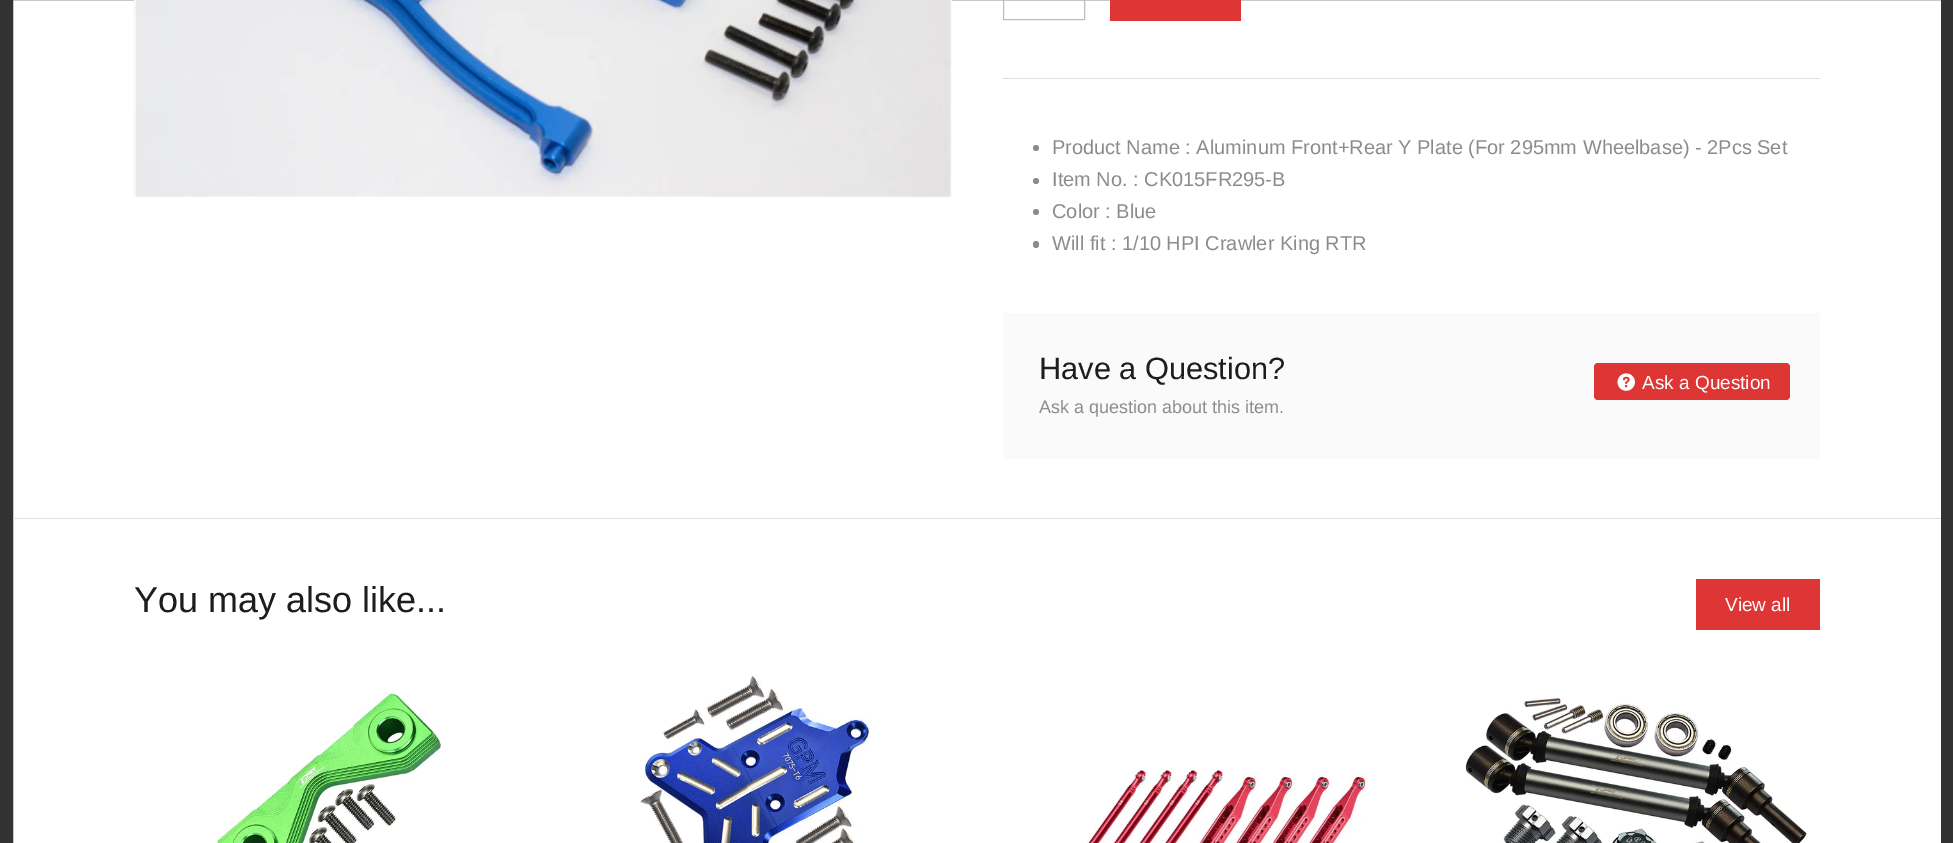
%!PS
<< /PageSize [1953 843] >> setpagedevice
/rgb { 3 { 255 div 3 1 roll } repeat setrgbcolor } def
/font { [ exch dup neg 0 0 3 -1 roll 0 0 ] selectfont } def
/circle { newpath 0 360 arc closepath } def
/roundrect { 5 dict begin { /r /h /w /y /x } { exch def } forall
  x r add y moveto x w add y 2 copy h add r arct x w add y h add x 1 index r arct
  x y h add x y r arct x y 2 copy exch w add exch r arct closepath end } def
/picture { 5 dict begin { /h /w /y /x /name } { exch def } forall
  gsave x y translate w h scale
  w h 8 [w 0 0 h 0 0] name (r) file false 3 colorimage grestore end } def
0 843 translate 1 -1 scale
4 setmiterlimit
255 255 255 rgb
0 0 1953 843 rectfill
50 50 50 rgb
13 setlinewidth
6.5 -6.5 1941 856 rectstroke
(img/1.rgb) 134 0 818 198 picture
221 221 221 rgb
1003 78 817 1 rectfill
188 188 188 rgb
1 setlinewidth
1003.5 -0.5 81 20 rectstroke
222 53 53 rgb
1110 0 131 21 rectfill
139 140 140 rgb
1036 148 3 circle fill
1036 181 3 circle fill
1036 212 3 circle fill
1033 241 6 7 3 roundrect fill
250 250 250 rgb
1003 313 817 146 rectfill
222 53 53 rgb
1594 363 196 37 4 roundrect fill
(img/2.rgb) 1617 373 18 18 picture
221 221 221 rgb
13 518 1928 1 rectfill
222 53 53 rgb
1696 579 124 51 rectfill
(img/3.rgb) 216 692 225 151 picture
(img/4.rgb) 640 675 230 168 picture
(img/5.rgb) 1087 767 279 76 picture
(img/6.rgb) 1465 698 342 145 picture
/LiberationSans-Regular 20 font
139 140 140 rgb
[
  [(Product Name : Aluminum Front+Rear Y Plate \(For 295mm Wheelbase\) - 2Pcs Set) 1052 154]
  [(Item No. : CK015FR295-B) 1052 186]
  [(Color : Blue) 1052 218]
  [(Will fit : 1/10 HPI Crawler King RTR) 1052 250]
] { aload pop moveto show } forall
/LiberationSans-Regular 30.75 font
28 29 29 rgb
1039 379 moveto (Have a Question?) show
/LiberationSans-Regular 18 font
139 140 140 rgb
1039 413 moveto (Ask a question about this item.) show
/LiberationSans-Regular 19 font
255 255 255 rgb
1642 389 moveto (Ask a Question) show
/LiberationSans-Regular 36 font
28 29 29 rgb
134 612 moveto (You may also like...) show
/LiberationSans-Regular 19 font
255 255 255 rgb
1725 611 moveto (View all) show
showpage
